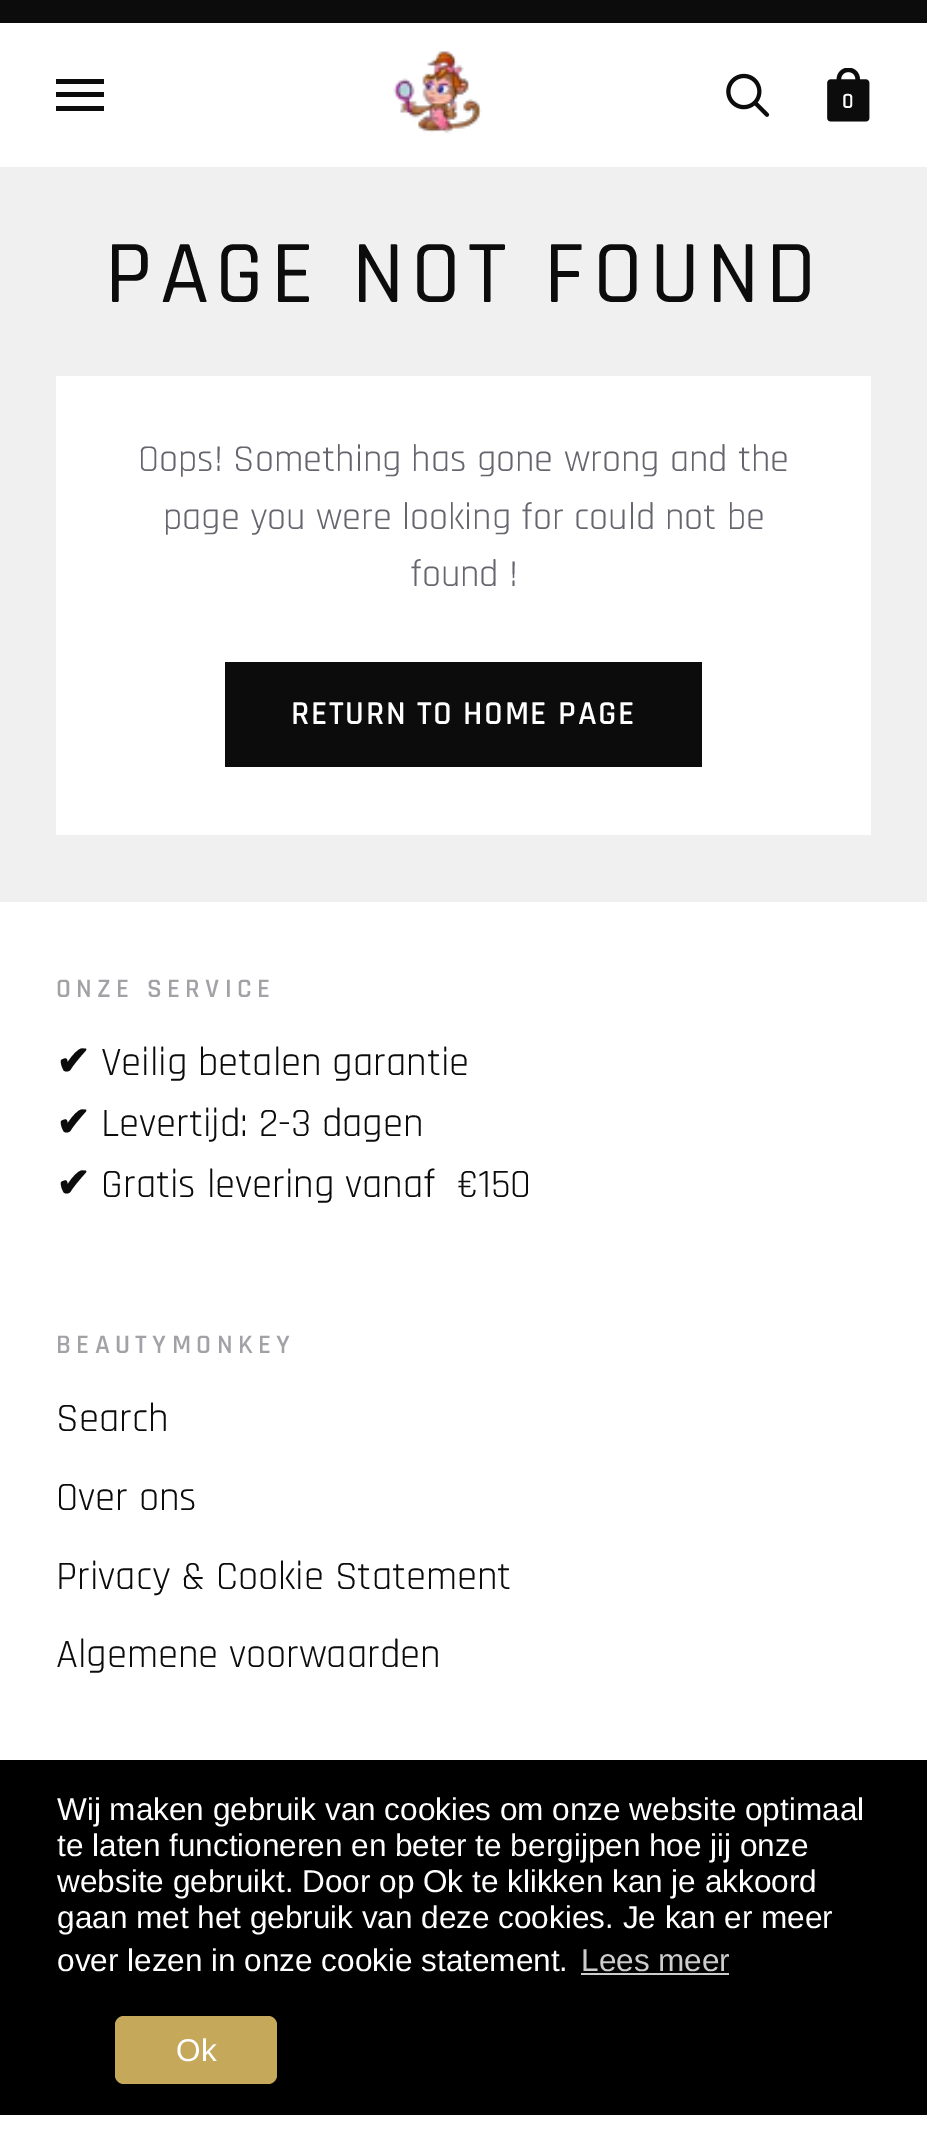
%!PS
<< /PageSize [927 2146] >> setpagedevice
/rgb { 3 { 255 div 3 1 roll } repeat setrgbcolor } def
/font { [ exch dup neg 0 0 3 -1 roll 0 0 ] selectfont } def
/roundrect { 5 dict begin { /r /h /w /y /x } { exch def } forall
  x r add y moveto x w add y 2 copy h add r arct x w add y h add x 1 index r arct
  x y h add x y r arct x y 2 copy exch w add exch r arct closepath end } def
/picture { 5 dict begin { /h /w /y /x /name } { exch def } forall
  gsave x y translate w h scale
  w h 8 [w 0 0 h 0 0] name (r) file false 3 colorimage grestore end } def
0 2146 translate 1 -1 scale
4 setmiterlimit
255 255 255 rgb
0 0 927 2146 rectfill
[
  [0 0 927 23 12 12 13]
  [56 79 48 5 12 12 13]
  [56 92 48 5 12 12 13]
  [56 106 48 5 12 12 13]
] { aload pop rgb rectfill } forall
(img/1.rgb) 393 51 89 83 picture
(img/2.rgb) 726 73 44 44 picture
(img/3.rgb) 827 68 43 54 picture
[
  [0 167 927 735 240 240 240]
  [56 376 815 459 255 255 255]
  [225 662 477 105 12 12 13]
  [0 1760 927 355 0 0 0]
  [581 1973 148 2 204 204 204]
] { aload pop rgb rectfill } forall
198 168 91 rgb
115 2016 162 68 9 roundrect fill
/Rajdhani-SemiBold 22 font
255 255 255 rgb
842 108 moveto (0) show
/Rajdhani-Medium 90 font
12 12 13 rgb
105 302 moveto 7.25 0 (PAGE NOT FOUND) ashow
/Rajdhani-Regular 38.25 font
102 101 110 rgb
[
  [(Oops! Something has gone wrong and the) 138 471]
  [(page you were looking for could not be) 163 529]
  [(found !) 410 586]
] { aload pop moveto show } forall
/Rajdhani-SemiBold 33.75 font
255 255 255 rgb
291 724 moveto 1.7 0 (RETURN TO HOME PAGE) ashow
/Rajdhani-SemiBold 27 font
161 161 166 rgb
56 997 moveto 5.4 0 (ONZE SERVICE) ashow
/DejaVuSans-Bold 40.5 font
12 12 13 rgb
56 1075 moveto (✔) show
/Rajdhani-Regular 40.5 font
101 1075 moveto (Veilig betalen garantie) show
/DejaVuSans-Bold 40.5 font
56 1136 moveto (✔) show
/Rajdhani-Regular 40.5 font
101 1136 moveto (Levertijd: 2-3 dagen) show
/DejaVuSans-Bold 40.5 font
56 1197 moveto (✔) show
/Rajdhani-Regular 40.5 font
101 1197 moveto (Gratis levering vanaf  €150) show
/Rajdhani-SemiBold 27 font
161 161 166 rgb
56 1353 moveto 5.4 0 (BEAUTYMONKEY) ashow
/Rajdhani-Regular 40.5 font
12 12 13 rgb
[
  [(Search) 56 1431]
  [(Over ons) 56 1510]
  [(Privacy & Cookie Statement) 56 1589]
  [(Algemene voorwaarden) 56 1667]
] { aload pop moveto show } forall
/LiberationSans-Regular 31.5 font
255 255 255 rgb
[
  [(Wij maken gebruik van cookies om onze website optimaal) 57 1820]
  [(te laten functioneren en beter te bergijpen hoe jij onze) 57 1856]
  [(website gebruikt. Door op Ok te klikken kan je akkoord) 57 1892]
  [(gaan met het gebruik van deze cookies. Je kan er meer) 57 1928]
  [(over lezen in onze cookie statement.) 57 1971]
] { aload pop moveto show } forall
204 204 204 rgb
581 1971 moveto (Lees meer) show
255 255 255 rgb
176 2061 moveto (Ok) show
showpage
